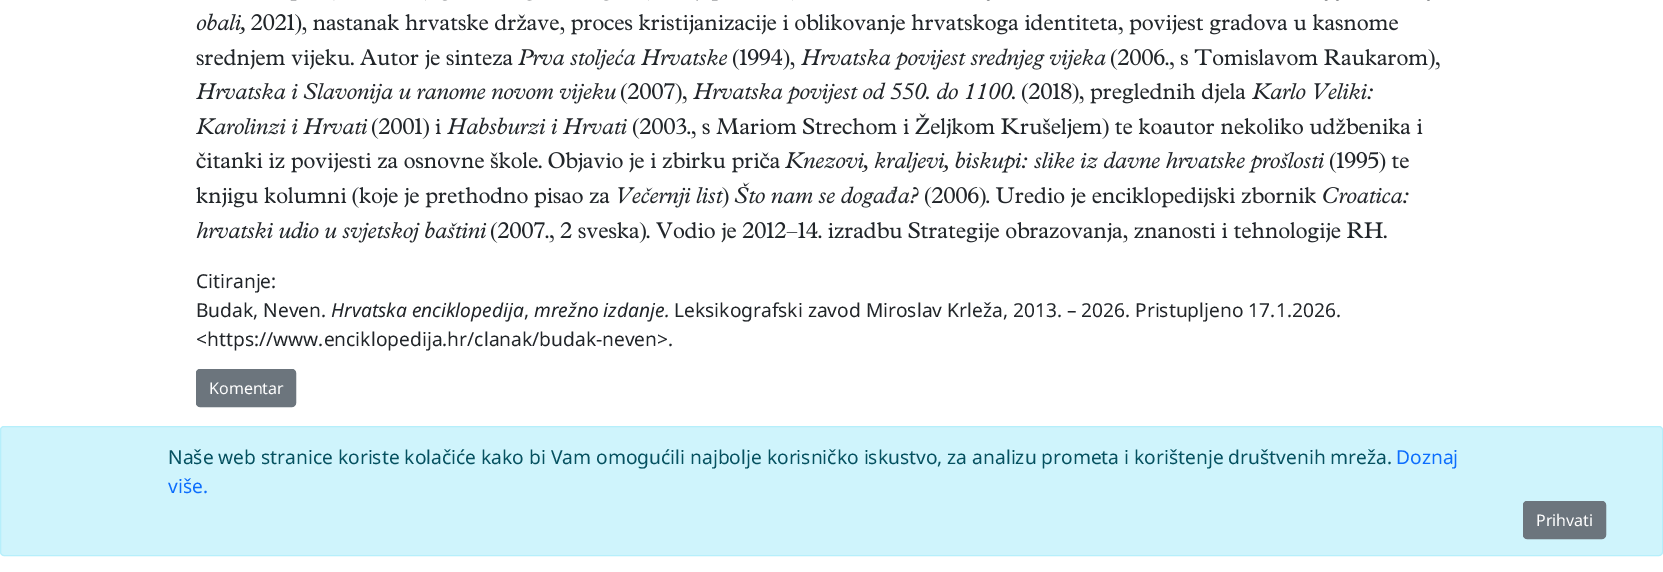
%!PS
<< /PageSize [1663 572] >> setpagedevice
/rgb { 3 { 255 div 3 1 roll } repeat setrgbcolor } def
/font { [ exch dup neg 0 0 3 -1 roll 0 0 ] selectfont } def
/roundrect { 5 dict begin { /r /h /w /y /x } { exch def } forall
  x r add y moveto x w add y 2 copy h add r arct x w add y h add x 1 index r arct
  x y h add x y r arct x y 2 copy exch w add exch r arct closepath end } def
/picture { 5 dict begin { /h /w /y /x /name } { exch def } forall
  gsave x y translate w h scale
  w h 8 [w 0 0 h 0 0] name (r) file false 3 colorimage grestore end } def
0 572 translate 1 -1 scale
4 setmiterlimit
255 255 255 rgb
0 0 1663 572 rectfill
(img/1.rgb) 290 0 503 1 picture
(img/2.rgb) 986 0 444 1 picture
(img/3.rgb) 196 13 49 21 picture
(img/4.rgb) 251 14 1147 21 picture
(img/5.rgb) 196 49 317 21 picture
(img/6.rgb) 518 49 210 21 picture
(img/7.rgb) 732 49 63 21 picture
(img/8.rgb) 801 48 305 22 picture
(img/9.rgb) 1110 49 330 21 picture
(img/10.rgb) 196 83 420 21 picture
(img/11.rgb) 620 83 67 21 picture
(img/12.rgb) 693 82 322 22 picture
(img/13.rgb) 1021 83 225 21 picture
(img/14.rgb) 1252 83 121 17 picture
(img/15.rgb) 196 118 172 17 picture
(img/16.rgb) 371 118 70 21 picture
(img/17.rgb) 447 117 180 18 picture
(img/18.rgb) 632 113 791 26 picture
(img/19.rgb) 196 152 584 21 picture
(img/20.rgb) 785 151 539 22 picture
(img/21.rgb) 1329 152 80 21 picture
(img/22.rgb) 196 187 414 21 picture
(img/23.rgb) 618 187 106 21 picture
(img/24.rgb) 722 187 7 21 picture
(img/25.rgb) 734 182 185 26 picture
(img/26.rgb) 924 187 392 21 picture
(img/27.rgb) 1323 187 86 17 picture
(img/28.rgb) 196 221 291 22 picture
(img/29.rgb) 490 222 897 21 picture
108 117 125 rgb
196.5 369.5 99 37 3.5 roundrect gsave fill grestore
stroke
207 244 252 rgb
0.5 426.5 1662 129 3.5 roundrect gsave fill grestore
182 239 251 rgb
stroke
108 117 125 rgb
1523.5 501.5 82 37 3.5 roundrect gsave fill grestore
stroke
/NotoSans-Regular 19.2 font
33 37 41 rgb
196 288 moveto (Citiranje:) show
196 317 moveto (Budak, Neven.) show
/NotoSans-Italic 19.2 font
331 317 moveto (Hrvatska enciklopedija) show
/NotoSans-Regular 19.2 font
524 317 moveto (,) show
/NotoSans-Italic 19.2 font
534 317 moveto (mrežno izdanje.) show
/NotoSans-Regular 19.2 font
[
  [(Leksikografski zavod Miroslav Krleža, 2013. – 2026.) 674 317]
  [(Pristupljeno 17.1.2026.) 1135 317]
  [(<https://www.enciklopedija.hr/clanak/budak-neven>.) 196 346]
] { aload pop moveto show } forall
/NotoSans-Regular 16 font
255 255 255 rgb
209 394 moveto (Komentar) show
/NotoSans-Regular 19.2 font
5 81 96 rgb
168 464 moveto (Naše web stranice koriste kolačiće kako bi Vam omogućili najbolje korisničko iskustvo, za analizu prometa i korištenje društvenih mreža.) show
13 110 253 rgb
1396 464 moveto (Doznaj) show
168 493 moveto (više.) show
/NotoSans-Regular 16 font
255 255 255 rgb
1536 526 moveto (Prihvati) show
showpage
